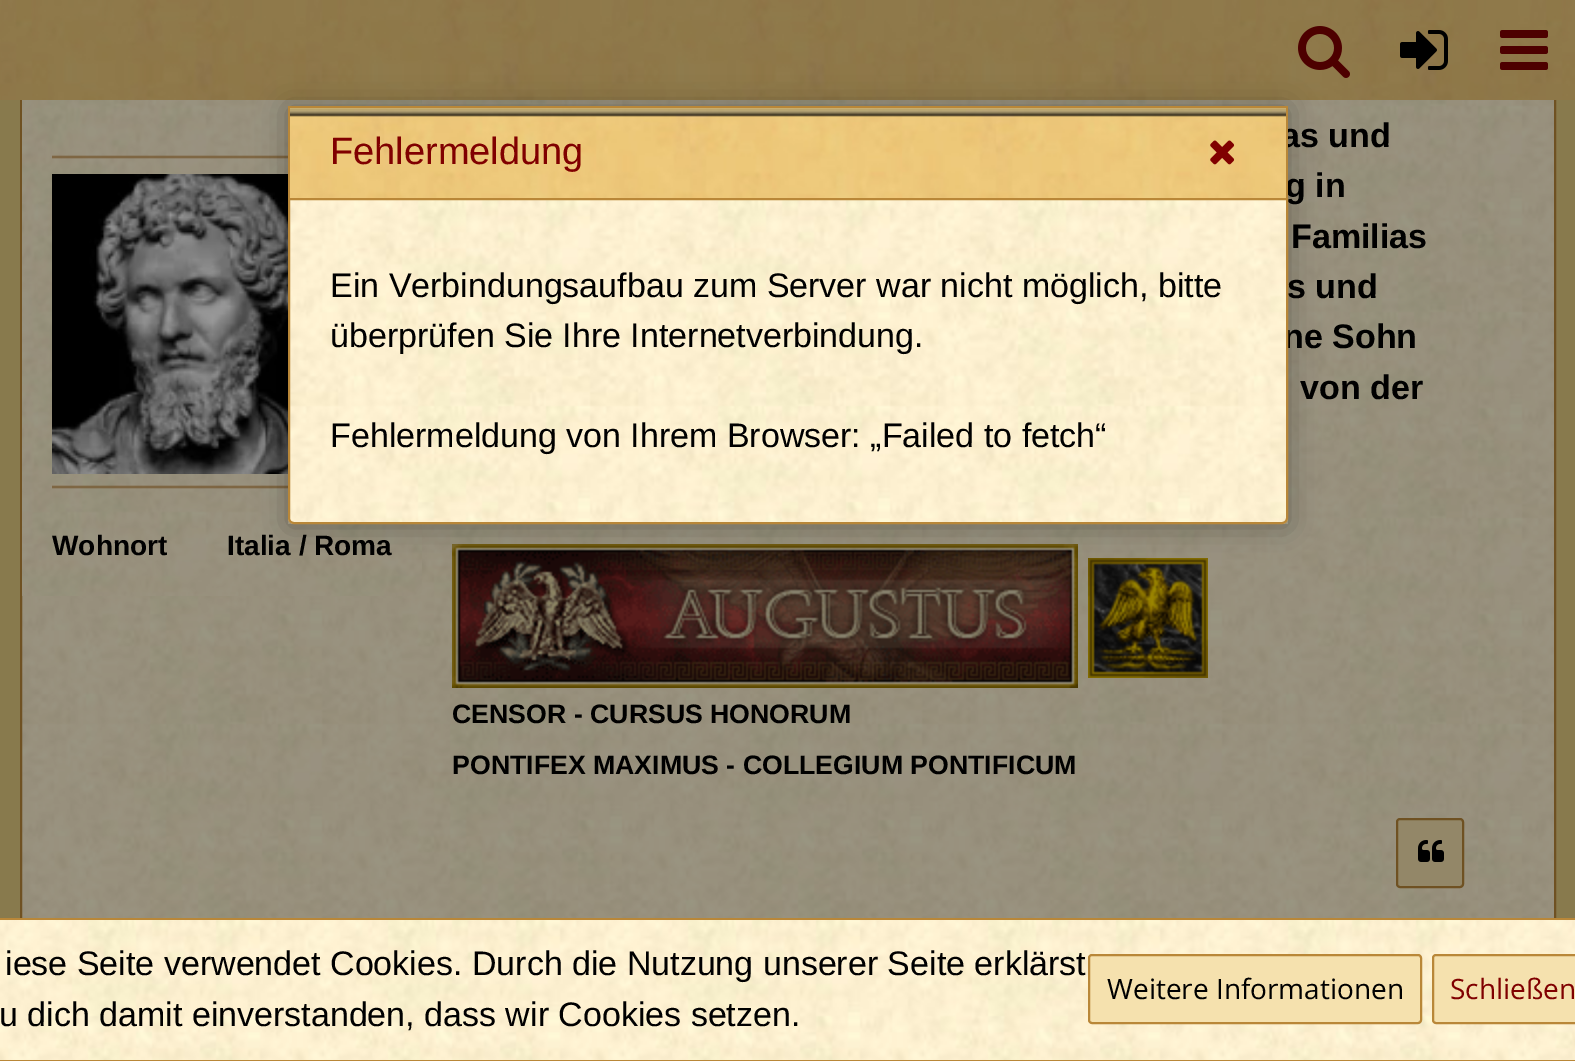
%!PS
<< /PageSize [1575 1061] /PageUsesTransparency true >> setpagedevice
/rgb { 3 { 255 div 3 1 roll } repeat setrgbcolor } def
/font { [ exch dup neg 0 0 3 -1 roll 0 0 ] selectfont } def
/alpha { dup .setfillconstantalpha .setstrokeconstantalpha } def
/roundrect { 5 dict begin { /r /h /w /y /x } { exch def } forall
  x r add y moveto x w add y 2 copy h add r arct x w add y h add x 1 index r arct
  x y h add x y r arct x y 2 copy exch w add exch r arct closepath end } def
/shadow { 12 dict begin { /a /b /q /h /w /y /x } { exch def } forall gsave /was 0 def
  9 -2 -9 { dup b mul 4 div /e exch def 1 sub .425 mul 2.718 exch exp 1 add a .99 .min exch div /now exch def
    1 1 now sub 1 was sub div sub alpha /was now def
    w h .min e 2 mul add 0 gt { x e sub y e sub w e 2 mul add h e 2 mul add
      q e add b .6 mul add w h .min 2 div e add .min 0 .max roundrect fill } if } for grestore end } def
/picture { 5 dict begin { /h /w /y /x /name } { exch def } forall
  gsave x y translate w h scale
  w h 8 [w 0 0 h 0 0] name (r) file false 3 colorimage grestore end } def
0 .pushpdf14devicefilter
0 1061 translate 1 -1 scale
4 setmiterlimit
136 122 77 rgb
0 0 1575 1061 rectfill
(img/5.rgb) 22 100 1532 818 picture
111 81 34 rgb
2 setlinewidth
21 -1 1534 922 rectstroke
(img/1.rgb) 0 0 1575 100 picture
(img/2.rgb) 1298 26 52 52 picture
(img/3.rgb) 1400 30 48 40 picture
(img/4.rgb) 1500 30 48 40 picture
(img/6.rgb) 22 100 400 496 picture
(img/7.rgb) 52 155 236 334 picture
(img/8.rgb) 52 174 236 300 picture
(img/9.rgb) 452 544 626 144 picture
(img/10.rgb) 1088 558 120 120 picture
147 135 104 rgb
1397 819 66 68 3 roundrect gsave fill grestore
111 81 34 rgb
stroke
(img/11.rgb) 1418 840 26 22 picture
0 0 0 rgb
288 108 1000 418 0 15 0.3 shadow
185 135 56 rgb
288 106 1000 2 rectfill
288 106 2 92 rectfill
(img/15.rgb) 0 920 1575 140 picture
0 918 1575 2 rectfill
0 1060 1575 1 rectfill
245 225 174 rgb
1089 955 332 68 3 roundrect gsave fill grestore
185 135 56 rgb
stroke
245 225 174 rgb
1433 955 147 68 3 roundrect gsave fill grestore
185 135 56 rgb
stroke
/LiberationSans-Bold 28 font
0 0 0 rgb
52 555 moveto (Wohnort) show
227 555 moveto (Italia / Roma) show
/LiberationSans-Bold 34 font
[
  [(as und) 1281 147]
  [(g in) 1285 197]
  [(Familias) 1291 248]
  [(s und) 1287 298]
  [(ne Sohn) 1283 348]
  [(von der) 1300 399]
] { aload pop moveto show } forall
/LiberationSans-Bold 26.7 font
452 723 moveto (CENSOR - CURSUS HONORUM) show
452 774 moveto (PONTIFEX MAXIMUS - COLLEGIUM PONTIFICUM) show
(img/12.rgb) 290 108 996 90 picture
185 135 56 rgb
1286 106 2 92 rectfill
/LiberationSans-Regular 38 font
128 0 0 rgb
330 164 moveto (Fehlermeldung) show
(img/13.rgb) 1210 140 25 25 picture
(img/14.rgb) 288 200 1000 324 picture
185 135 56 rgb
289 199 moveto 1287 199 lineto 1287 518 lineto 1287 521 1285 523 1282 523 curveto 294 523 lineto 291 523 289 521 289 518 curveto closepath stroke
/LiberationSans-Regular 34 font
0 0 0 rgb
[
  [(Ein Verbindungsaufbau zum Server war nicht möglich, bitte) 330 297]
  [(überprüfen Sie Ihre Internetverbindung.) 330 347]
  [(Fehlermeldung von Ihrem Browser: „Failed to fetch“) 330 447]
  [(iese Seite verwendet Cookies. Durch die Nutzung unserer Seite erklärst) 5 975]
  [(u dich damit einverstanden, dass wir Cookies setzen.) -1 1026]
] { aload pop moveto show } forall
/OpenSans-Regular 28 font
1107 999 moveto (Weitere Informationen) show
128 0 0 rgb
1450 999 moveto (Schließen) show
.poppdf14devicefilter showpage
